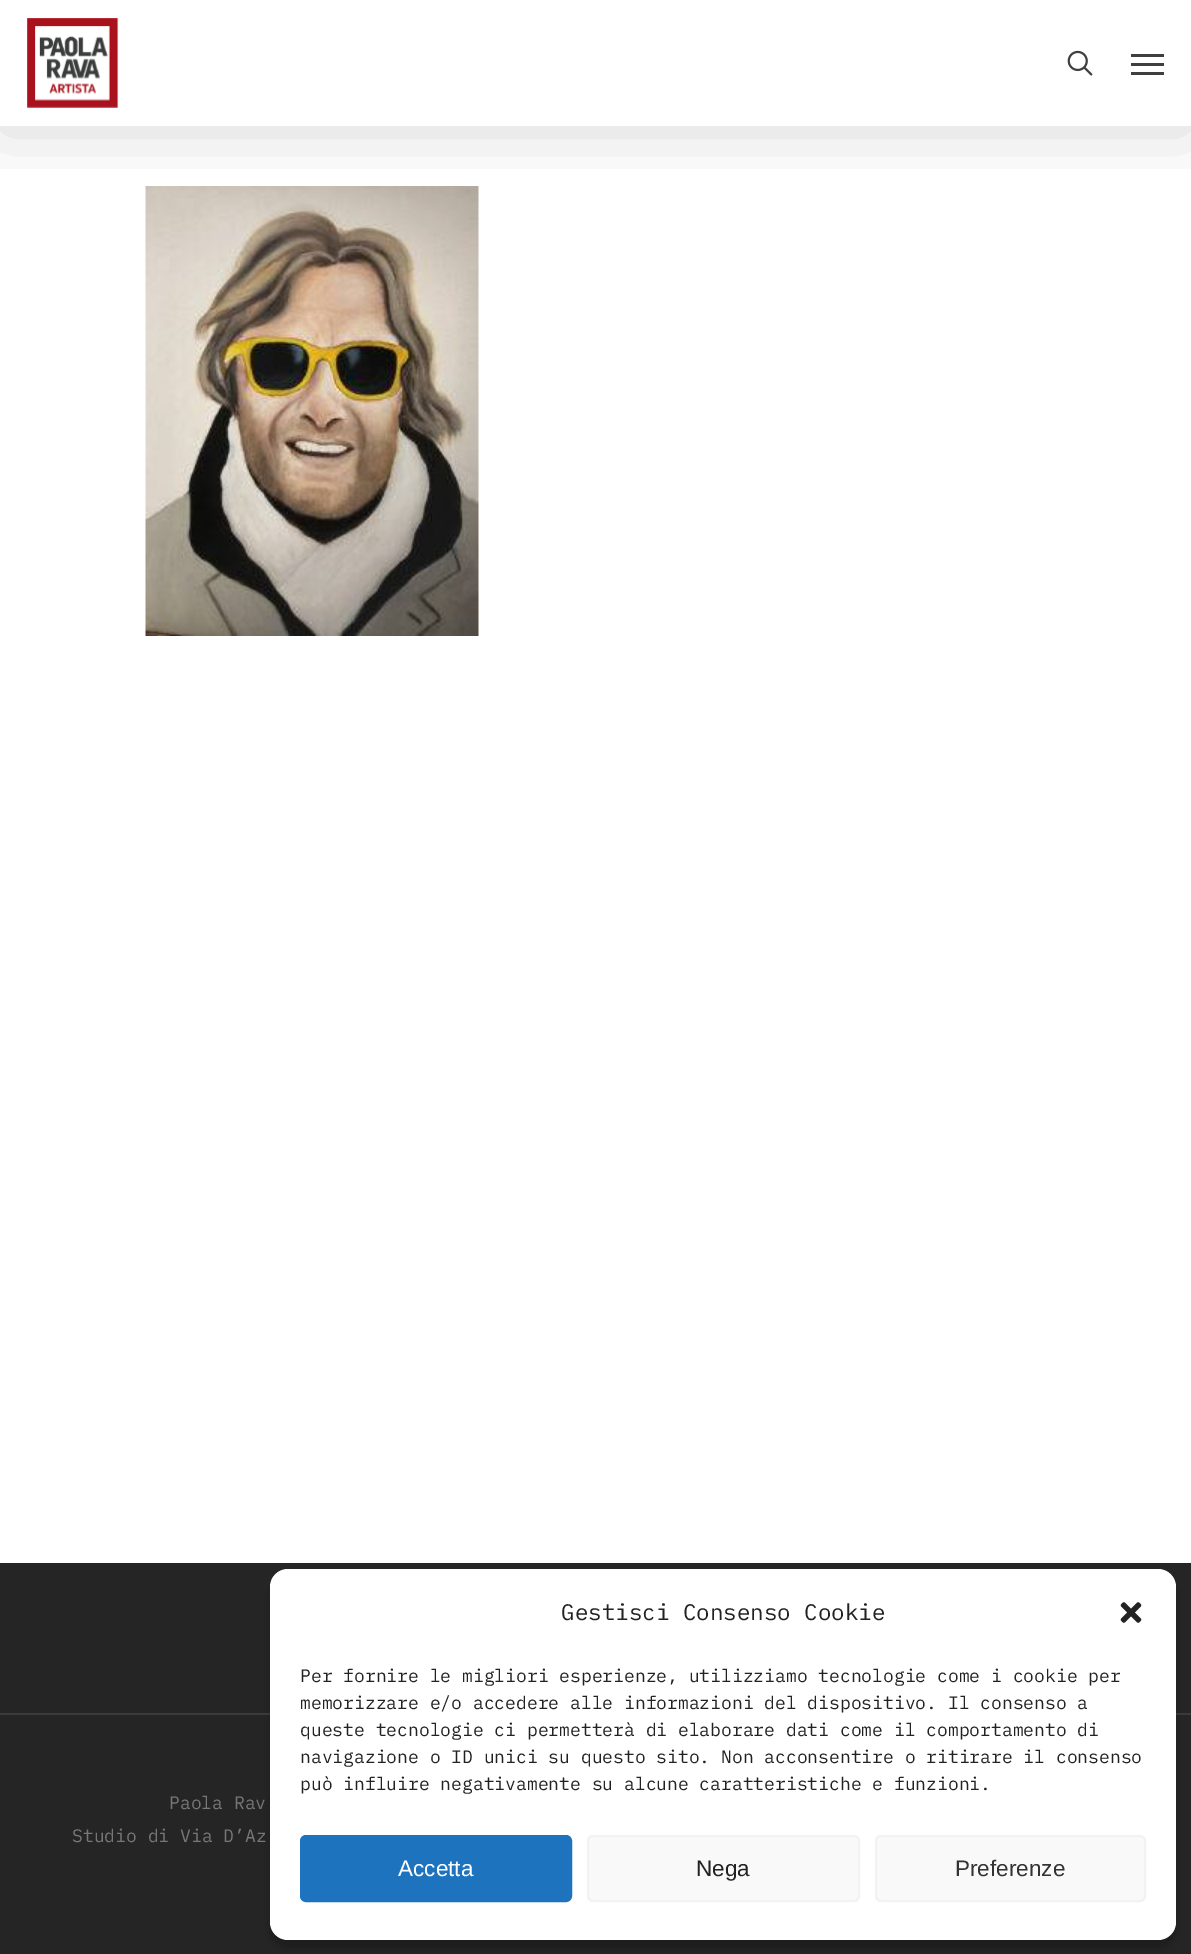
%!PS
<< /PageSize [1191 1954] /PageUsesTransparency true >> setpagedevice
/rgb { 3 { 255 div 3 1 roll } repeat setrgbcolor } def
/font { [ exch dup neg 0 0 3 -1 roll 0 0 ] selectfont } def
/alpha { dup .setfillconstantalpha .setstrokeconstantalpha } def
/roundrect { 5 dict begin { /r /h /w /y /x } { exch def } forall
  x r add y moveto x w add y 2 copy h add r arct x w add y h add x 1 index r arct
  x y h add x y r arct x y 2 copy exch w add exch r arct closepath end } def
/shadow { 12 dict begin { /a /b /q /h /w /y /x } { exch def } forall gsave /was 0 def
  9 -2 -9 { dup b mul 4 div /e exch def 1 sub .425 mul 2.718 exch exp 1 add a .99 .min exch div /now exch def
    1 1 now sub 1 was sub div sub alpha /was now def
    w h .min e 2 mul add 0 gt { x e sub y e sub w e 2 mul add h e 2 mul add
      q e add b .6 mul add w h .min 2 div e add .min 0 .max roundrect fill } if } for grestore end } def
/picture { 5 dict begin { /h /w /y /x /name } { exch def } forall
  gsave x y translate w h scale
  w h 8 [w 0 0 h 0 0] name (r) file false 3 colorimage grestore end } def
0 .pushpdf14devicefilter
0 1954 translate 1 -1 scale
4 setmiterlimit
255 255 255 rgb
0 0 1191 1954 rectfill
(img/3.rgb) 145 186 334 450 picture
gsave
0 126 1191 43 rectclip
0 0 0 rgb
0 5 1191 126 0 34 0.15 shadow
grestore
(img/1.rgb) 27 18 92 90 picture
(img/2.rgb) 1067 50 26 26 picture
[
  [1131 54 33 3 63 63 64]
  [1131 72 33 3 63 63 64]
  [1131 63 33 3 63 63 64]
  [0 1563 1191 391 37 37 37]
  [0 1713 1191 2 59 59 59]
] { aload pop rgb rectfill } forall
0 0 0 rgb
270 1578 906 371 18 4.5 0.23 shadow
255 255 255 rgb
270 1569 906 371 18 roundrect fill
(img/4.rgb) 1120 1602 22 21 picture
30 115 190 rgb
301 1836 270 65 5 roundrect gsave fill grestore
2 setlinewidth
stroke
249 249 249 rgb
588 1836 271 65 5 roundrect gsave fill grestore
242 242 242 rgb
stroke
249 249 249 rgb
876 1836 269 65 5 roundrect gsave fill grestore
242 242 242 rgb
stroke
/IBMPlexMono-Regular 18 font
119 119 119 rgb
169 1809 moveto (Paola Rav) show
72 1842 moveto (Studio di Via D’Az) show
/IBMPlexMono-Regular 22.5 font
34 34 34 rgb
561 1620 moveto (Gestisci Consenso Cookie) show
/IBMPlexMono-Regular 18 font
[
  [(Per fornire le migliori esperienze, utilizziamo tecnologie come i cookie per) 300 1682]
  [(memorizzare e/o accedere alle informazioni del dispositivo. Il consenso a) 300 1709]
  [(queste tecnologie ci permetterà di elaborare dati come il comportamento di) 300 1736]
  [(navigazione o ID unici su questo sito. Non acconsentire o ritirare il consenso) 300 1763]
  [(può influire negativamente su alcune caratteristiche e funzioni.) 300 1790]
] { aload pop moveto show } forall
/LiberationSans-Regular 22.5 font
255 255 255 rgb
398 1876 moveto (Accetta) show
34 34 34 rgb
696 1876 moveto (Nega) show
51 51 51 rgb
955 1876 moveto (Preferenze) show
.poppdf14devicefilter showpage
